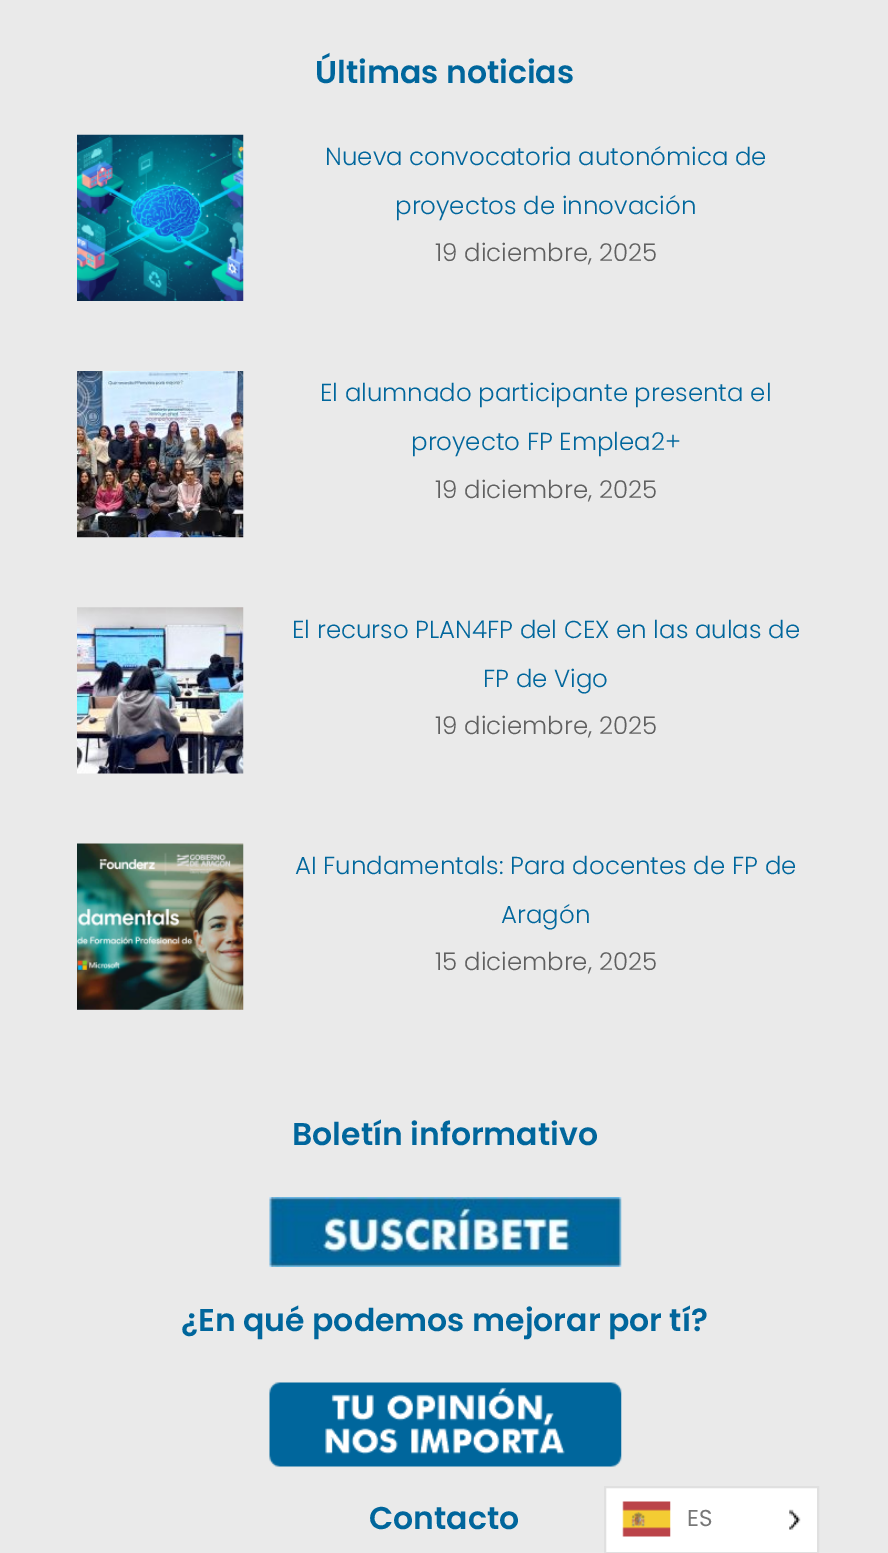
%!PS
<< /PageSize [888 1553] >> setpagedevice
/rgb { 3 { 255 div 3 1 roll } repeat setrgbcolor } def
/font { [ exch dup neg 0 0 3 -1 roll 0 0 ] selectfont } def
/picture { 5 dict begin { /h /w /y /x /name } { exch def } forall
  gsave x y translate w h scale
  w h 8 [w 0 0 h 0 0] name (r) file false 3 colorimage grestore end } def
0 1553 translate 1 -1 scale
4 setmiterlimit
234 234 234 rgb
0 0 888 1553 rectfill
(img/1.rgb) 77 134 167 167 picture
(img/2.rgb) 77 371 167 167 picture
(img/3.rgb) 77 607 167 167 picture
(img/4.rgb) 77 843 167 167 picture
(img/5.rgb) 269 1197 353 70 picture
(img/6.rgb) 269 1382 353 85 picture
255 255 255 rgb
605 1487 moveto 818 1487 lineto 818 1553 lineto 605 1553 lineto closepath gsave fill grestore
224 224 224 rgb
2 setlinewidth
stroke
(img/7.rgb) 622 1501 49 36 picture
(img/8.rgb) 789 1509 12 21 picture
/Poppins-SemiBold 31.5 font
0 102 156 rgb
315 83 moveto (Últimas noticias) show
/Poppins-Light 24.5 font
325 165 moveto (Nueva convocatoria autonómica de) show
395 214 moveto (proyectos de innovación) show
96 96 96 rgb
435 261 moveto (19 diciembre, 2025) show
0 102 156 rgb
320 401 moveto (El alumnado participante presenta el) show
411 450 moveto (proyecto FP Emplea2+) show
96 96 96 rgb
435 498 moveto (19 diciembre, 2025) show
0 102 156 rgb
292 638 moveto (El recurso PLAN4FP del CEX en las aulas de) show
483 687 moveto (FP de Vigo) show
96 96 96 rgb
435 734 moveto (19 diciembre, 2025) show
0 102 156 rgb
295 874 moveto (AI Fundamentals: Para docentes de FP de) show
501 923 moveto (Aragón) show
96 96 96 rgb
435 970 moveto (15 diciembre, 2025) show
/Poppins-SemiBold 31.5 font
0 102 156 rgb
[
  [(Boletín informativo) 292 1145]
  [(¿En qué podemos mejorar por tí?) 181 1331]
  [(Contacto) 369 1529]
] { aload pop moveto show } forall
/Poppins-Regular 23 font
119 119 119 rgb
687 1526 moveto (ES) show
showpage
